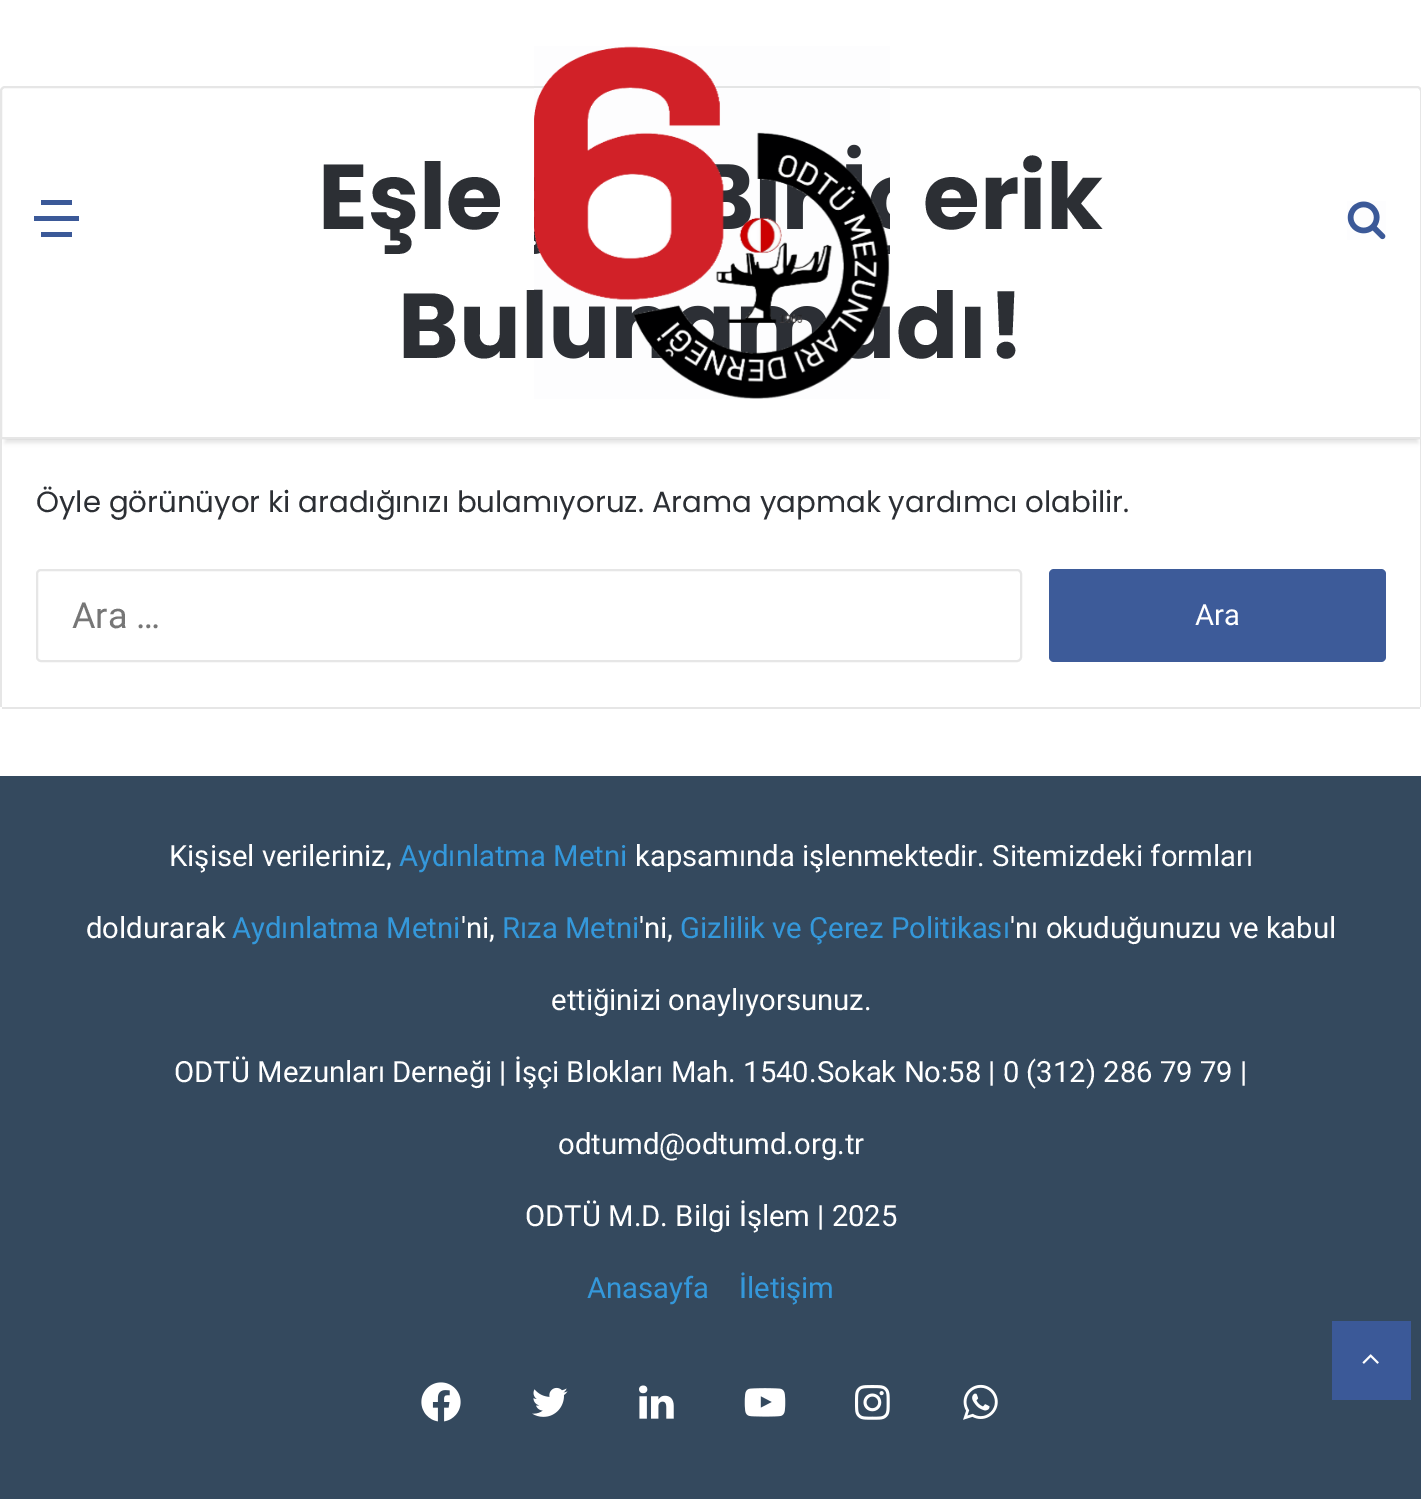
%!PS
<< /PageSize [1421 1499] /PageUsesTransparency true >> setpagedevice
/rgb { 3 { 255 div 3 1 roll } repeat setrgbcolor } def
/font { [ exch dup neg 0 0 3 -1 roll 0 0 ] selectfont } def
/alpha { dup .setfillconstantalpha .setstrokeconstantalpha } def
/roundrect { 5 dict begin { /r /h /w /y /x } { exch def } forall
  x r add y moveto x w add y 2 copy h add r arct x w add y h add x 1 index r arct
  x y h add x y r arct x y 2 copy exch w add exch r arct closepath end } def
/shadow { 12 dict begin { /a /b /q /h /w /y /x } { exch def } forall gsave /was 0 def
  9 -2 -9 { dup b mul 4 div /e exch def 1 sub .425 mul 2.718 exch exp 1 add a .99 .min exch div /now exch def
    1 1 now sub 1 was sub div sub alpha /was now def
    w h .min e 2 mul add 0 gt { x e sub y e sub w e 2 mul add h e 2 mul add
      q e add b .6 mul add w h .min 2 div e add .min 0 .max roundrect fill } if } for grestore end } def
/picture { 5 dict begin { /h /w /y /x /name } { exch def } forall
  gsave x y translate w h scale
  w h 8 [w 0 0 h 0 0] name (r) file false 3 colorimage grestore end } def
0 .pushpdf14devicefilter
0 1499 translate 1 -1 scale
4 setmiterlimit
255 255 255 rgb
0 0 1421 1499 rectfill
230 230 230 rgb
2 setlinewidth
5 87 moveto 1417 87 lineto 1419 87 1421 89 1421 91 curveto 1421 438 lineto 1 438 lineto 1 91 lineto 1 89 3 87 5 87 curveto closepath stroke
1420 439 1 268 rectfill
0 439 2 268 rectfill
gsave
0 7 moveto 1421 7 lineto 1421 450 lineto 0 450 lineto closepath 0 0 moveto 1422 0 lineto 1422 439 lineto 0 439 lineto closepath eoclip newpath
0 0 0 rgb
5 14 1413 429 0 2 0.1 shadow
grestore
[
  [34 216 45 5 59 89 152]
  [41 200 31 5 59 89 152]
  [41 232 31 5 59 89 152]
] { aload pop rgb rectfill } forall
(img/2.rgb) 1347 201 39 39 picture
230 230 230 rgb
2 707 1418 2 rectfill
37 570 984 91 4 roundrect stroke
61 91 153 rgb
1049 569 337 93 5 roundrect fill
52 73 94 rgb
0 776 1421 723 rectfill
(img/3.rgb) 421 1382 40 40 picture
(img/4.rgb) 532 1387 36 30 picture
(img/5.rgb) 639 1385 35 34 picture
(img/6.rgb) 744 1388 42 29 picture
(img/7.rgb) 855 1385 35 35 picture
(img/8.rgb) 963 1384 35 36 picture
59 89 152 rgb
1332 1321 79 79 rectfill
(img/9.rgb) 1362 1354 17 10 picture
/Poppins-Bold 92 font
44 47 52 rgb
[
  [(Eşle) 318 229]
  [(erik) 923 229]
  [(Bulu) 398 358]
] { aload pop moveto show } forall
(img/1.rgb) 534 46 356 353 picture
896 358 moveto (dı!) show
/Poppins-Regular 29.25 font
36 512 moveto (Öyle görünüyor ki aradığınızı bulamıyoruz. Arama yapmak yardımcı olabilir.) show
/Roboto-Regular 36 font
118 118 118 rgb
72 628 moveto (Ara …) show
/Roboto-Regular 29.25 font
255 255 255 rgb
1195 625 moveto (Ara) show
169 866 moveto (Kişisel verileriniz,) show
52 152 219 rgb
399 866 moveto (Aydınlatma Metni) show
255 255 255 rgb
635 866 moveto (kapsamında işlenmektedir. Sitemizdeki formları) show
86 938 moveto (doldurarak) show
52 152 219 rgb
232 938 moveto (Aydınlatma Metni) show
255 255 255 rgb
461 938 moveto ('ni,) show
52 152 219 rgb
502 938 moveto (Rıza Metni) show
255 255 255 rgb
639 938 moveto ('ni,) show
52 152 219 rgb
680 938 moveto (Gizlilik ve Çerez Politikası) show
255 255 255 rgb
[
  [('nı okuduğunuzu ve kabul) 1010 938]
  [(ettiğinizi onaylıyorsunuz.) 551 1010]
  [(ODTÜ Mezunları Derneği | İşçi Blokları Mah. 1540.Sokak No:58 | 0 \(312\) 286 79 79 |) 174 1082]
  [(odtumd@odtumd.org.tr) 558 1154]
  [(ODTÜ M.D. Bilgi İşlem | 2025) 525 1226]
] { aload pop moveto show } forall
52 152 219 rgb
587 1298 moveto (Anasayfa) show
739 1298 moveto (İletişim) show
.poppdf14devicefilter showpage
